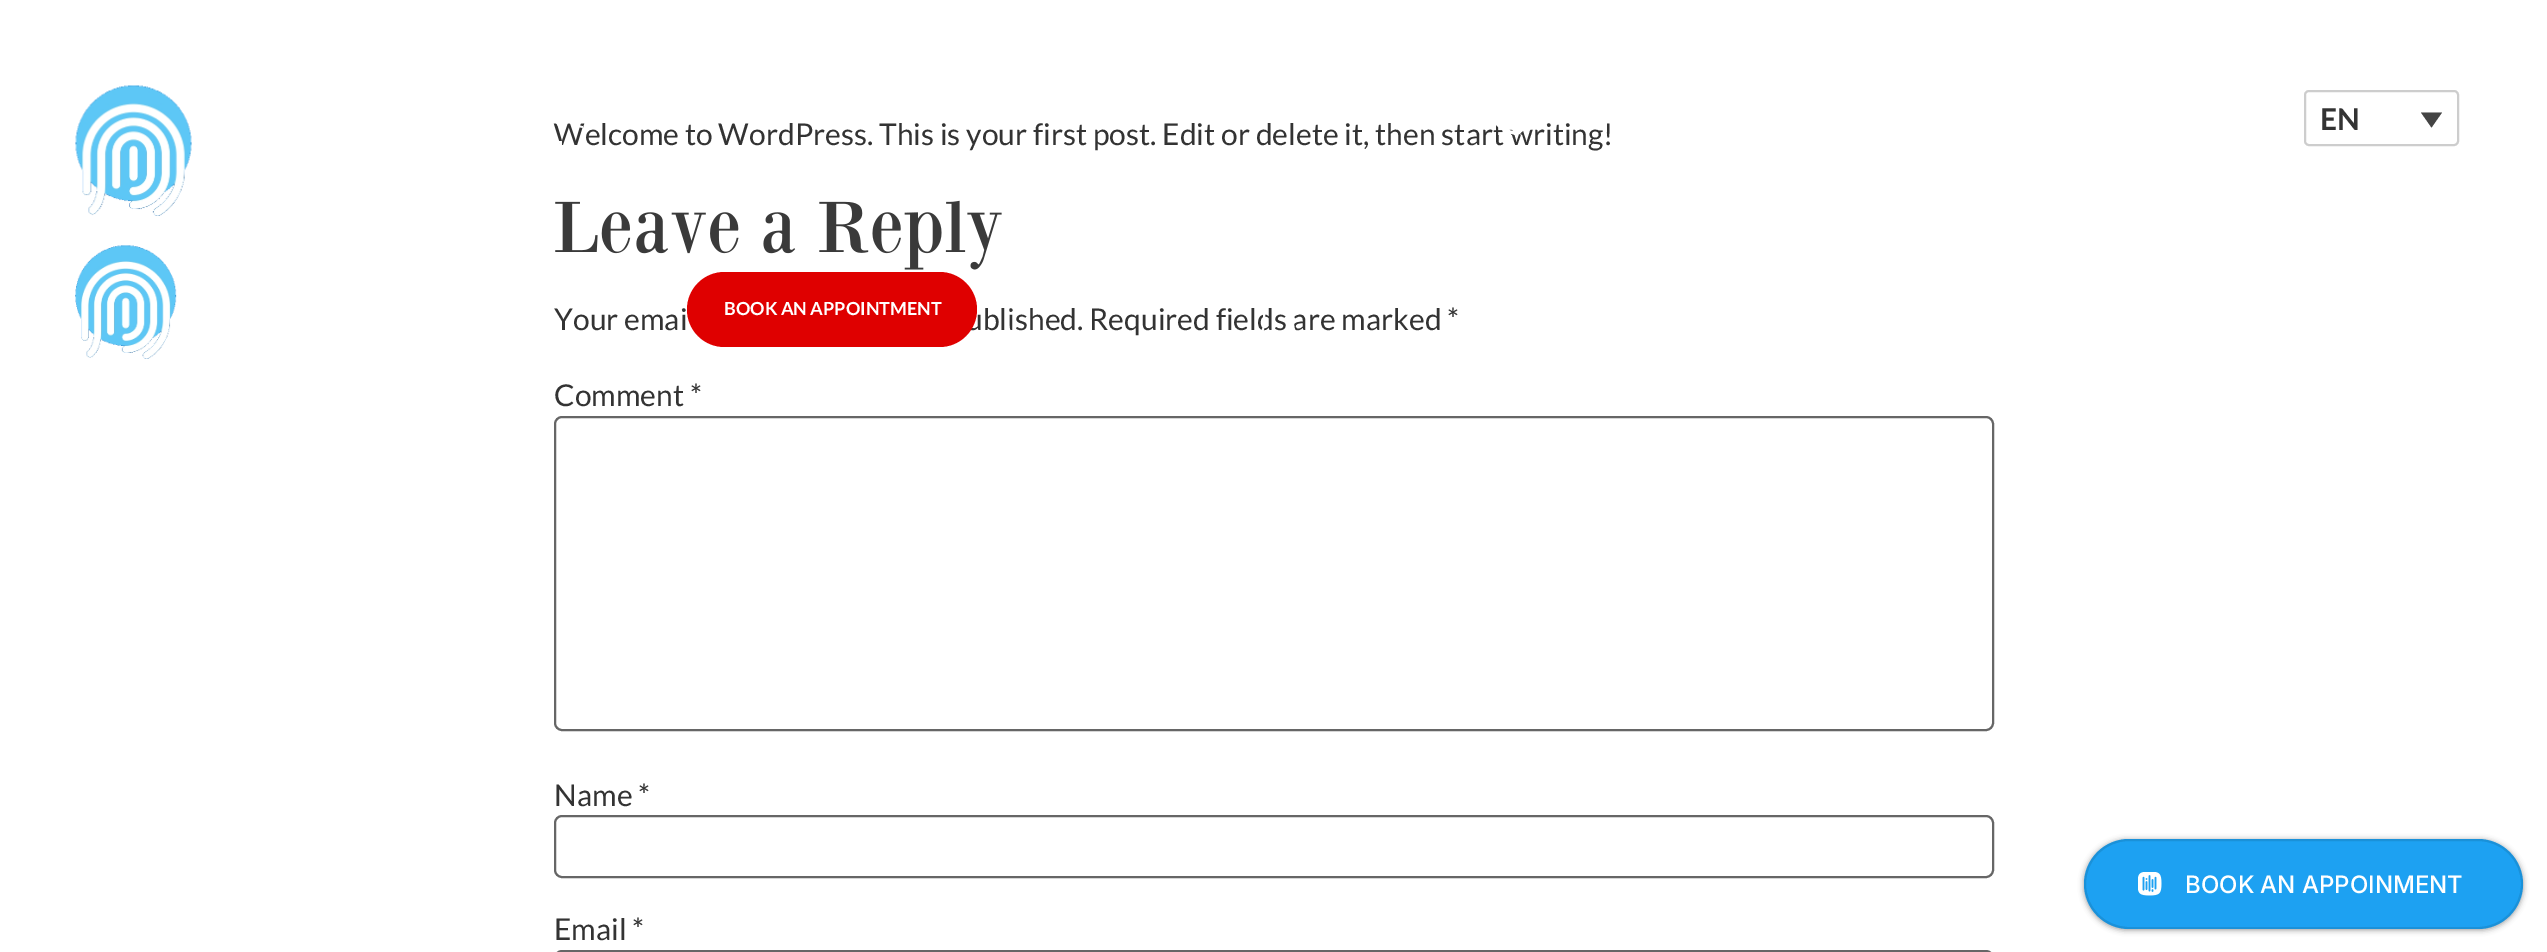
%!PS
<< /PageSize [2547 952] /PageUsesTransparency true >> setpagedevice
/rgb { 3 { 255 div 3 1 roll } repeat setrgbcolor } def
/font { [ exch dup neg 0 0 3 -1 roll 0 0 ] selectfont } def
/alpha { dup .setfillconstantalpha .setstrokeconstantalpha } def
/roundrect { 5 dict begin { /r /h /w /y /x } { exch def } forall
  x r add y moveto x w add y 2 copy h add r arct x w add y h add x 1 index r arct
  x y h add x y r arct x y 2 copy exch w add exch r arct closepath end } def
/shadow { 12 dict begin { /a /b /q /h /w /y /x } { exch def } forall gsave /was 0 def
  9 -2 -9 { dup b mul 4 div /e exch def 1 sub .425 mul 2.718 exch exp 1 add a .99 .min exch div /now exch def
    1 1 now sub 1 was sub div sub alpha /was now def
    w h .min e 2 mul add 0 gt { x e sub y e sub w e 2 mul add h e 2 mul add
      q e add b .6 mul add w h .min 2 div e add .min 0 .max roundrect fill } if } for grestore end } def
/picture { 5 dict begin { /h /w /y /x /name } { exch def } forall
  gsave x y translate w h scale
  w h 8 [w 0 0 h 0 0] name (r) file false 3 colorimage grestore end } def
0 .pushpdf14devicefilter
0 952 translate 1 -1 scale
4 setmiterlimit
255 255 255 rgb
0 0 2547 952 rectfill
205 205 205 rgb
2 setlinewidth
2305 91 153 54 4 roundrect stroke
68 68 68 rgb
2421 112.5 moveto 2442 112.5 lineto 2431.5 127.5 lineto closepath fill
(img/3.rgb) 75 245 102 114 picture
(img/4.rgb) 555 200 447 70 picture
102 102 102 rgb
555 417 1438 313 7 roundrect stroke
555 816 1438 61 7 roundrect stroke
555 951 1438 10 7 roundrect stroke
0 0 0 rgb
2084 840 439 90 45 3 0.4 shadow
29 161 242 rgb
2084 839 439 90 45 roundrect fill
0.1 alpha
0 0 0 rgb
2085 840 437 88 44 roundrect stroke
1 alpha
(img/5.rgb) 2138 872 24 24 picture
/Lato-Bold 30 font
51 51 51 rgb
2320 130 moveto (EN) show
/Lato-Regular 30 font
554 145 moveto (Welcome to WordPress. This is your first post. Edit or delete it, then start writing!) show
(img/2.rgb) 1496 124 27 11 picture
(img/1.rgb) 75 85 508 131 picture
554 330 moveto (Your emai) show
966 330 moveto (ublished. Required fields are marked *) show
255 255 255 rgb
1293 273 295 73 23 roundrect stroke
1008 273 256 73 23 roundrect stroke
223 0 0 rgb
687 272 290 75 37.5 roundrect fill
/Lato-Bold 18 font
255 255 255 rgb
724 315 moveto (BOOK AN APPOINTMENT) show
/Lato-Regular 30 font
51 51 51 rgb
[
  [(Comment *) 554 406]
  [(Name *) 554 806]
  [(Email *) 554 940]
] { aload pop moveto show } forall
/Inter-Medium 24 font
255 255 255 rgb
2185 893 moveto (BOOK AN APPOINMENT) show
.poppdf14devicefilter showpage
